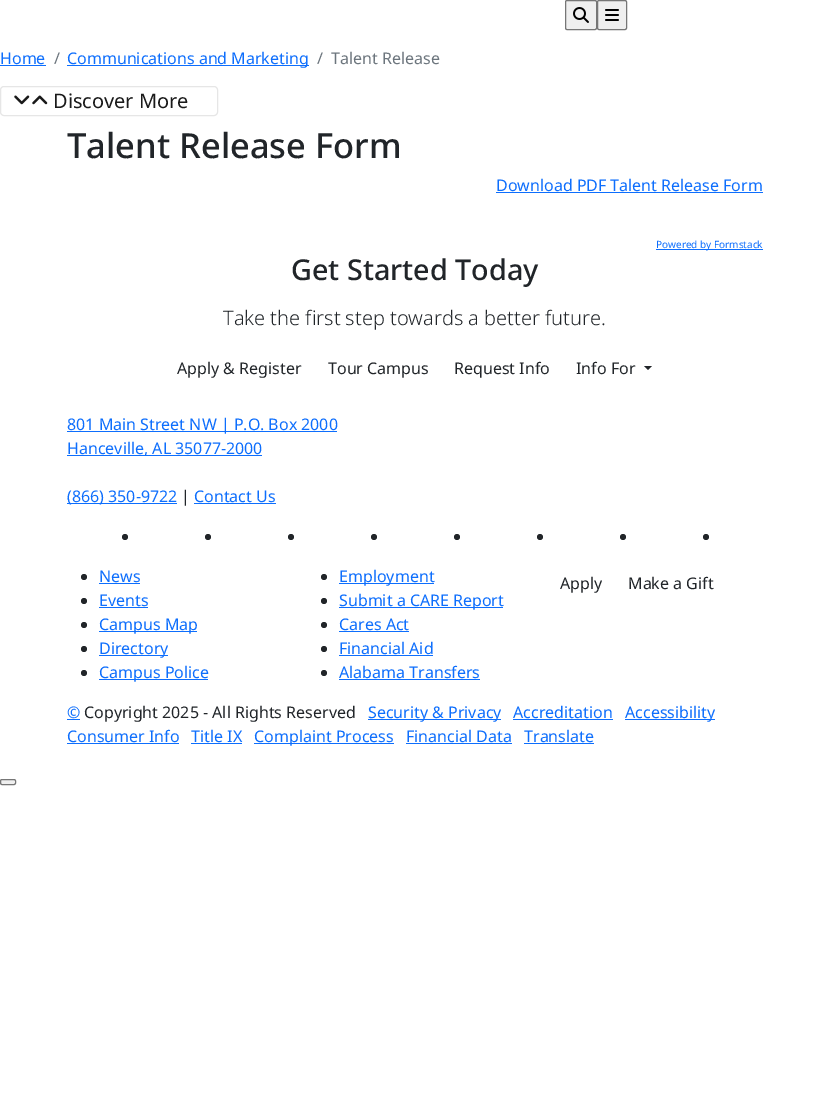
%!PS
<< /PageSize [829 1102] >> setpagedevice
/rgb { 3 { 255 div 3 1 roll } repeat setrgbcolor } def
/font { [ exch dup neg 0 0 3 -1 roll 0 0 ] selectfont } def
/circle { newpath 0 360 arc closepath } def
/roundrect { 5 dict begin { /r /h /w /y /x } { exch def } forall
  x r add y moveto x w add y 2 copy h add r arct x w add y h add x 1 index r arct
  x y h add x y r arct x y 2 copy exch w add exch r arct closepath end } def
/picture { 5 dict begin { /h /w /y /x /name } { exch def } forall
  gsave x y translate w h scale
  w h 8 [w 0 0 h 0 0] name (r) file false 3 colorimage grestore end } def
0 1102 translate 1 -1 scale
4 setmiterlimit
255 255 255 rgb
0 0 829 1102 rectfill
239 239 239 rgb
565.5 0.5 31 29 1.5 roundrect gsave fill grestore
118 118 118 rgb
stroke
(img/1.rgb) 573 7 16 16 picture
239 239 239 rgb
597.5 0.5 29 29 1.5 roundrect gsave fill grestore
118 118 118 rgb
stroke
(img/2.rgb) 605 9 14 12 picture
13 110 253 rgb
0 65 46 1 rectfill
67 65 242 1 rectfill
230 230 230 rgb
0.5 86.5 217 29 3.5 roundrect stroke
(img/3.rgb) 14 95 16 10 picture
(img/4.rgb) 32 95 16 10 picture
13 110 253 rgb
496 192 267 1 rectfill
656 249 107 1 rectfill
33 37 41 rgb
644 366 moveto 652 366 lineto 648 370 lineto closepath fill
[
  [67 431 270 1 13 110 253]
  [67 455 195 1 13 110 253]
  [67 503 110 1 13 110 253]
  [194 503 82 1 13 110 253]
] { aload pop rgb rectfill } forall
33 37 41 rgb
125 537 3 circle fill
208 537 3 circle fill
291 537 3 circle fill
374 537 3 circle fill
457 537 3 circle fill
540 537 3 circle fill
623 537 3 circle fill
706 537 3 circle fill
84 577 3 circle fill
13 110 253 rgb
99 583 41 1 rectfill
33 37 41 rgb
84 601 3 circle fill
13 110 253 rgb
99 607 49 1 rectfill
33 37 41 rgb
84 625 3 circle fill
13 110 253 rgb
99 631 98 1 rectfill
33 37 41 rgb
84 649 3 circle fill
13 110 253 rgb
99 655 69 1 rectfill
33 37 41 rgb
84 673 3 circle fill
13 110 253 rgb
99 679 109 1 rectfill
33 37 41 rgb
324 577 3 circle fill
13 110 253 rgb
339 583 95 1 rectfill
33 37 41 rgb
324 601 3 circle fill
13 110 253 rgb
339 607 164 1 rectfill
33 37 41 rgb
324 625 3 circle fill
13 110 253 rgb
339 631 70 1 rectfill
33 37 41 rgb
324 649 3 circle fill
13 110 253 rgb
339 655 94 1 rectfill
33 37 41 rgb
324 673 3 circle fill
[
  [339 679 141 1 13 110 253]
  [67 719 13 1 13 110 253]
  [368 719 133 1 13 110 253]
  [513 719 100 1 13 110 253]
  [625 719 90 1 13 110 253]
  [67 743 112 1 13 110 253]
  [191 743 51 1 13 110 253]
  [254 743 140 1 13 110 253]
  [406 743 106 1 13 110 253]
  [524 743 70 1 13 110 253]
] { aload pop rgb rectfill } forall
239 239 239 rgb
0.5 779.5 15 5 1.5 roundrect gsave fill grestore
118 118 118 rgb
stroke
/NotoSans-Regular 16 font
13 110 253 rgb
0 64 moveto (Home) show
108 117 125 rgb
54 64 moveto (/) show
13 110 253 rgb
67 64 moveto (Communications and Marketing) show
108 117 125 rgb
317 64 moveto (/) show
331 64 moveto (Talent Release) show
/NotoSans-Regular 20 font
26 26 26 rgb
53 108 moveto (Discover More) show
/NotoSans-Medium 34.5 font
33 37 41 rgb
67 158 moveto (Talent Release Form) show
/NotoSans-Regular 16 font
13 110 253 rgb
496 191 moveto (Download PDF Talent Release Form) show
/NotoSans-Regular 10 font
656 248 moveto (Powered by Formstack) show
/NotoSans-Medium 28.75 font
33 37 41 rgb
291 280 moveto (Get Started Today) show
/NotoSans-Light 20 font
223 325 moveto (Take the first step towards a better future.) show
/NotoSans-Regular 16 font
[
  [(Apply & Register) 177 374]
  [(Tour Campus) 328 374]
  [(Request Info) 454 374]
  [(Info For) 576 374]
] { aload pop moveto show } forall
13 110 253 rgb
[
  [(801 Main Street NW | P.O. Box 2000) 67 430]
  [(Hanceville, AL 35077-2000) 67 454]
  [(\(866\) 350-9722) 67 502]
] { aload pop moveto show } forall
33 37 41 rgb
181 502 moveto (|) show
13 110 253 rgb
[
  [(Contact Us) 194 502]
  [(News) 99 582]
  [(Events) 99 606]
  [(Campus Map) 99 630]
  [(Directory) 99 654]
  [(Campus Police) 99 678]
  [(Employment) 339 582]
  [(Submit a CARE Report) 339 606]
  [(Cares Act) 339 630]
  [(Financial Aid) 339 654]
  [(Alabama Transfers) 339 678]
] { aload pop moveto show } forall
33 37 41 rgb
560 589 moveto (Apply) show
628 589 moveto (Make a Gift) show
13 110 253 rgb
67 718 moveto (©) show
33 37 41 rgb
84 718 moveto (Copyright 2025 - All Rights Reserved) show
13 110 253 rgb
[
  [(Security & Privacy) 368 718]
  [(Accreditation) 513 718]
  [(Accessibility) 625 718]
  [(Consumer Info) 67 742]
  [(Title IX) 191 742]
  [(Complaint Process) 254 742]
  [(Financial Data) 406 742]
  [(Translate) 524 742]
] { aload pop moveto show } forall
showpage
